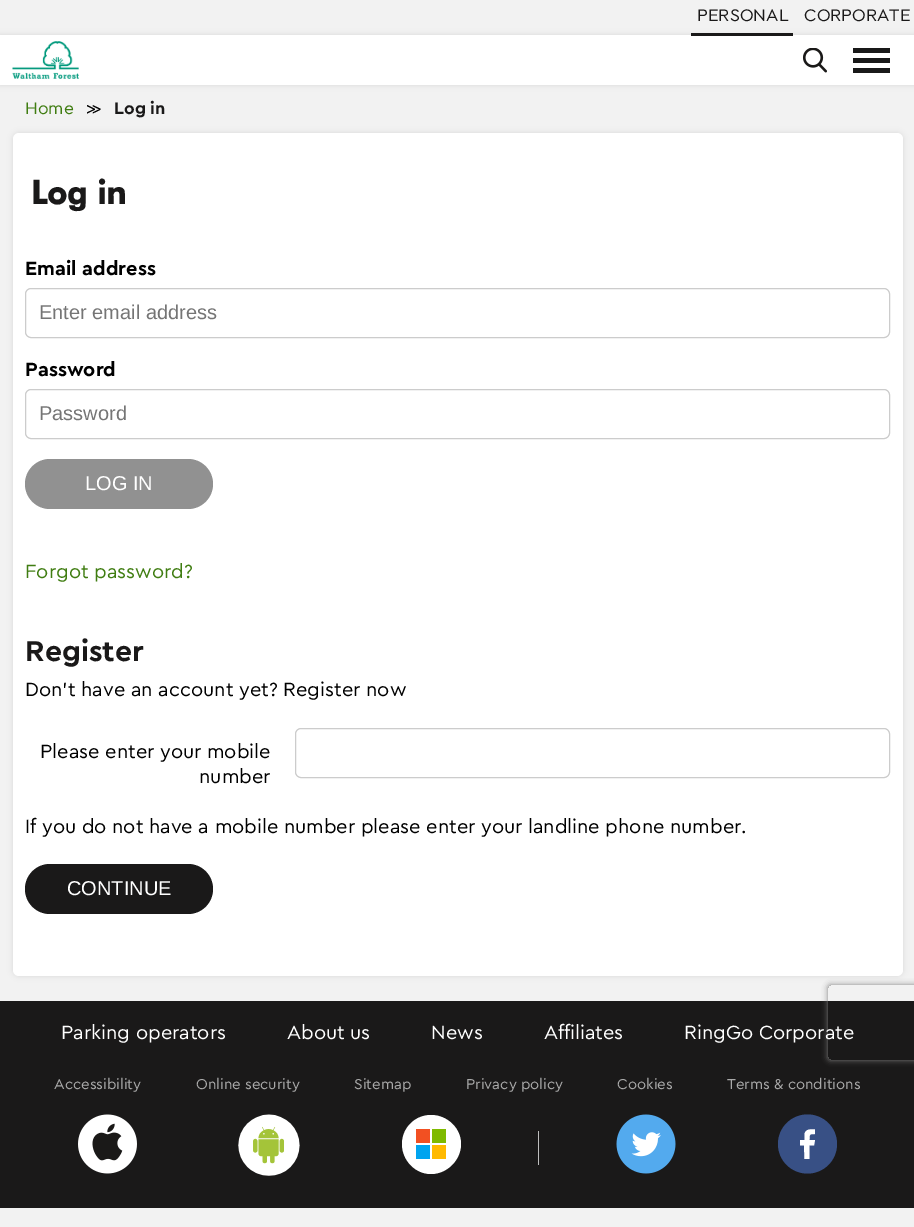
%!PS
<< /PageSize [914 1227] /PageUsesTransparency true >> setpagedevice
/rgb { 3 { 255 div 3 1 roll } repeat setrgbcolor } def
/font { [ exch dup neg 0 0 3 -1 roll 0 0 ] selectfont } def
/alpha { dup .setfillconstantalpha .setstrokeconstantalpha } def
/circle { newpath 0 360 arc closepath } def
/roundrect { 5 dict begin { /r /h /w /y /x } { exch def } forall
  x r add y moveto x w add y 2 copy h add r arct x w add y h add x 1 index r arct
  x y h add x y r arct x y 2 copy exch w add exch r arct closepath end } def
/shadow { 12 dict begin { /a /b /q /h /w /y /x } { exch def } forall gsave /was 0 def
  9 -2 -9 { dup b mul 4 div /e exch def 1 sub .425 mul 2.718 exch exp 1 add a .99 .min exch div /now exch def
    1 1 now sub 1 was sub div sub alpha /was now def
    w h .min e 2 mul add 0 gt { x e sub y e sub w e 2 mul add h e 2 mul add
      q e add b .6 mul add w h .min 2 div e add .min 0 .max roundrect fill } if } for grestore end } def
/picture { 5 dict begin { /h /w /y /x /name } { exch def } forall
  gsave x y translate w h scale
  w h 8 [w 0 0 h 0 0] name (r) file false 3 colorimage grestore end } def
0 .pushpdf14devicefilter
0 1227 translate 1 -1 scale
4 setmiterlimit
242 242 242 rgb
0 0 914 1227 rectfill
0 0 0 rgb
0 35 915 50 0 3 0.1 shadow
255 255 255 rgb
0 35 914 50 rectfill
26 25 25 rgb
691 33 102 3 rectfill
(img/1.rgb) 12 41 67 38 picture
(img/2.rgb) 803 48 24 25 picture
[
  [853 48 37 5 25 25 25]
  [853 58 37 5 25 25 25]
  [853 68 37 5 25 25 25]
] { aload pop rgb rectfill } forall
0 0 0 rgb
13 133 890 843 6 3 0.1 shadow
255 255 255 rgb
13 133 890 843 6 roundrect fill
204 204 204 rgb
25.5 288.5 864 49 5.5 roundrect stroke
25.5 389.5 864 49 5.5 roundrect stroke
145 145 145 rgb
25 459 188 50 25 roundrect fill
204 204 204 rgb
295.5 728.5 594 49 5.5 roundrect stroke
26 25 25 rgb
25 864 188 50 25 roundrect fill
0 1001 914 207 rectfill
(img/3.rgb) 78 1114 59 60 picture
(img/4.rgb) 238 1114 62 62 picture
255 255 255 rgb
431 1174 moveto 447 1174 461 1160 461 1144 curveto 461 1128 447 1115 431 1115 curveto 415 1115 402 1128 402 1144 curveto 402 1160 415 1174 431 1174 curveto closepath eofill
[
  [416 1129 14 14 242 80 34]
  [432 1129 14 14 127 186 0]
  [416 1145 14 14 0 164 239]
  [432 1145 14 14 255 185 0]
  [538 1131 1 34 190 190 190]
] { aload pop rgb rectfill } forall
(img/5.rgb) 616 1114 60 60 picture
56 80 133 rgb
807.5 1144 29.5 circle fill
255 255 255 rgb
809.5 1159 moveto 809.5 1145.5 lineto 814 1145.5 lineto 815 1140 lineto 809.5 1140 lineto 809.5 1134 809.5 1134 815 1134 curveto 815 1129.5 lineto 811 1129 805.5 1129 804.5 1134 curveto 804.5 1140 lineto 800 1140 lineto 800 1145.5 lineto 804 1145.5 lineto 804.5 1159 lineto closepath eofill
gsave
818 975 moveto 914 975 lineto 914 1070 lineto 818 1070 lineto closepath 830.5 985 moveto 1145.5 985 lineto 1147 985 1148 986 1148 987.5 curveto 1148 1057.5 lineto 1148 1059 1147 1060 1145.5 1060 curveto 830.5 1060 lineto 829 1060 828 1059 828 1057.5 curveto 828 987.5 lineto 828 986 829 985 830.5 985 curveto closepath eoclip newpath
128 128 128 rgb
828 985 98 75 2.5 3 1 shadow
grestore
/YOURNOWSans-Regular 17.5 font
26 25 25 rgb
697 21 moveto (PERSONAL) show
804 21 moveto (CORPORATE) show
64 125 18 rgb
25 114 moveto (Home) show
/DejaVuSans-Regular 15 font
0 0 0 rgb
86 114 moveto (≫) show
/YOURNOWSans-Bold 17.5 font
26 25 25 rgb
114 114 moveto (Log in) show
/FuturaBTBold-Bold 32.5 font
31 204 moveto (Log in) show
/YOURNOWSans-Bold 20 font
0 0 0 rgb
25 275 moveto (Email address) show
/LiberationSans-Regular 20 font
117 117 117 rgb
39 319 moveto (Enter email address) show
/YOURNOWSans-Bold 20 font
0 0 0 rgb
25 376 moveto (Password) show
/LiberationSans-Regular 20 font
117 117 117 rgb
39 420 moveto (Password) show
255 255 255 rgb
85 490 moveto (LOG IN) show
/YOURNOWSans-Regular 20 font
64 125 18 rgb
25 578 moveto (Forgot password?) show
/YOURNOWSans-Bold 30 font
26 25 25 rgb
25 661 moveto (Register) show
/YOURNOWSans-Regular 20 font
0 0 0 rgb
[
  [(Don't have an account yet? Register now) 25 696]
  [(Please enter your mobile) 40 758]
  [(number) 199 783]
  [(If you do not have a mobile number please enter your landline phone number.) 25 833]
] { aload pop moveto show } forall
/LiberationSans-Regular 20 font
255 255 255 rgb
67 895 moveto (CONTINUE) show
/YOURNOWSans-Regular 20 font
[
  [(Parking operators) 61 1039]
  [(About us) 287 1039]
  [(News) 431 1039]
  [(Affiliates) 544 1039]
  [(RingGo Corporate) 684 1039]
] { aload pop moveto show } forall
/YOURNOWSans-Regular 15 font
169 169 169 rgb
[
  [(Accessibility) 54 1089]
  [(Online security) 196 1089]
  [(Sitemap) 354 1089]
  [(Privacy policy) 466 1089]
  [(Cookies) 617 1089]
  [(Terms & conditions) 727 1089]
] { aload pop moveto show } forall
.poppdf14devicefilter showpage
